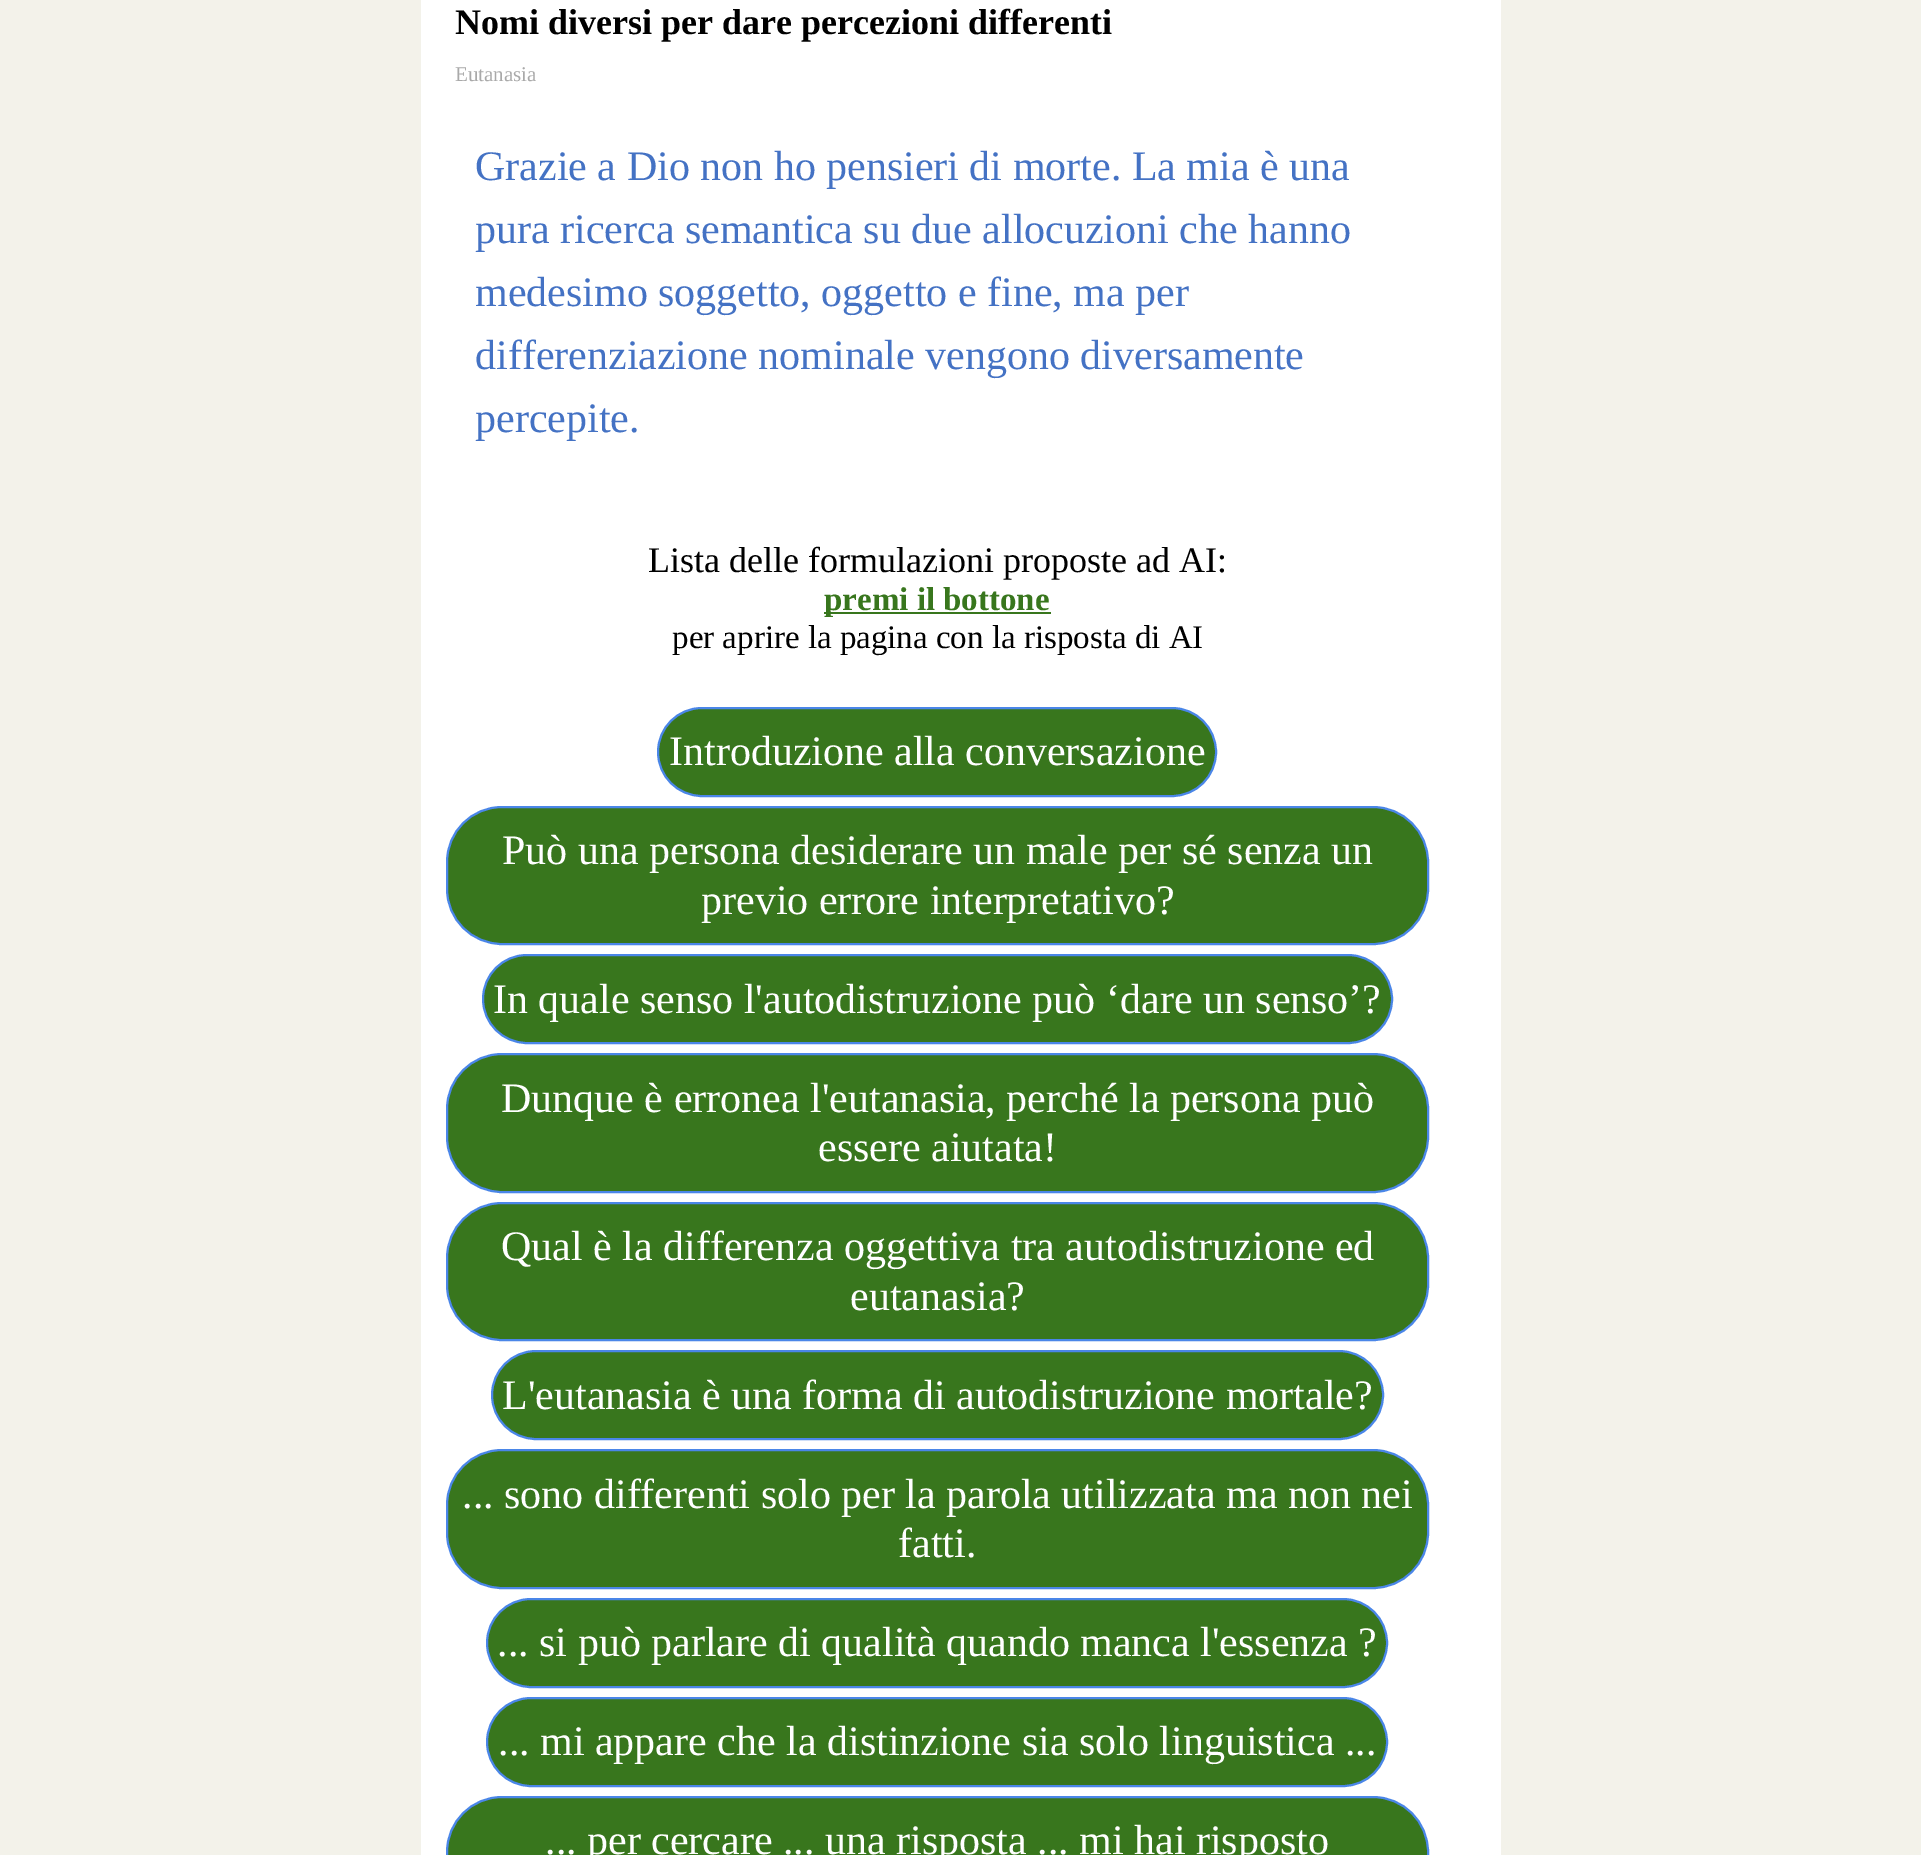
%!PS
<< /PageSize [1921 1855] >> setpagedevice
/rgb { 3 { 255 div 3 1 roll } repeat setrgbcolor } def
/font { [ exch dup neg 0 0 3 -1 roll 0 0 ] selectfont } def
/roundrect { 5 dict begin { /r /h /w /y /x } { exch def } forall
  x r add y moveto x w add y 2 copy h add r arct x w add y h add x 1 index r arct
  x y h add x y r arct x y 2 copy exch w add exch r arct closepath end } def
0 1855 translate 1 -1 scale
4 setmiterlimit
243 242 234 rgb
0 0 1921 1855 rectfill
255 255 255 rgb
421 0 1080 1855 rectfill
56 118 29 rgb
824 612 227 2 rectfill
658 708 558 88 44 roundrect gsave fill grestore
74 134 232 rgb
2 setlinewidth
stroke
56 118 29 rgb
447 807 981 137 55 roundrect gsave fill grestore
74 134 232 rgb
stroke
56 118 29 rgb
483 955 909 88 44 roundrect gsave fill grestore
74 134 232 rgb
stroke
56 118 29 rgb
447 1054 981 138 55 roundrect gsave fill grestore
74 134 232 rgb
stroke
56 118 29 rgb
447 1203 981 137 55 roundrect gsave fill grestore
74 134 232 rgb
stroke
56 118 29 rgb
492 1351 891 88 44 roundrect gsave fill grestore
74 134 232 rgb
stroke
56 118 29 rgb
447 1450 981 138 55 roundrect gsave fill grestore
74 134 232 rgb
stroke
56 118 29 rgb
487 1599 900 88 44 roundrect gsave fill grestore
74 134 232 rgb
stroke
56 118 29 rgb
487 1698 900 88 44 roundrect gsave fill grestore
74 134 232 rgb
stroke
56 118 29 rgb
447 1797 981 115 55 roundrect gsave fill grestore
74 134 232 rgb
stroke
/LiberationSerif-Bold 36 font
0 0 0 rgb
455 34 moveto (Nomi diversi per dare percezioni differenti) show
/LiberationSerif-Regular 21 font
169 169 169 rgb
455 81 moveto (Eutanasia) show
/LiberationSerif-Regular 42 font
68 114 196 rgb
[
  [(Grazie a Dio non ho pensieri di morte. La mia è una) 475 180]
  [(pura ricerca semantica su due allocuzioni che hanno) 475 243]
  [(medesimo soggetto, oggetto e fine, ma per) 475 306]
  [(differenziazione nominale vengono diversamente) 475 369]
  [(percepite.) 475 432]
] { aload pop moveto show } forall
/LiberationSerif-Regular 36 font
0 0 0 rgb
648 572 moveto (Lista delle formulazioni proposte ad AI:) show
/LiberationSerif-Bold 33 font
56 118 29 rgb
824 610 moveto (premi il bottone) show
/LiberationSerif-Regular 33 font
0 0 0 rgb
672 648 moveto (per aprire la pagina con la risposta di AI) show
/LiberationSerif-Regular 42 font
255 255 255 rgb
[
  [(Introduzione alla conversazione) 669 765]
  [(Può una persona desiderare un male per sé senza un) 502 864]
  [(previo errore interpretativo?) 701 914]
  [(In quale senso l'autodistruzione può ‘dare un senso’?) 493 1013]
  [(Dunque è erronea l'eutanasia, perché la persona può) 501 1112]
  [(essere aiutata!) 818 1161]
  [(Qual è la differenza oggettiva tra autodistruzione ed) 501 1260]
  [(eutanasia?) 850 1310]
  [(L'eutanasia è una forma di autodistruzione mortale?) 502 1409]
  [(... sono differenti solo per la parola utilizzata ma non nei) 462 1508]
  [(fatti.) 898 1557]
  [(... si può parlare di qualità quando manca l'essenza ?) 497 1656]
  [(... mi appare che la distinzione sia solo linguistica ...) 498 1755]
  [(... per cercare ... una risposta ... mi hai risposto) 545 1854]
] { aload pop moveto show } forall
showpage
